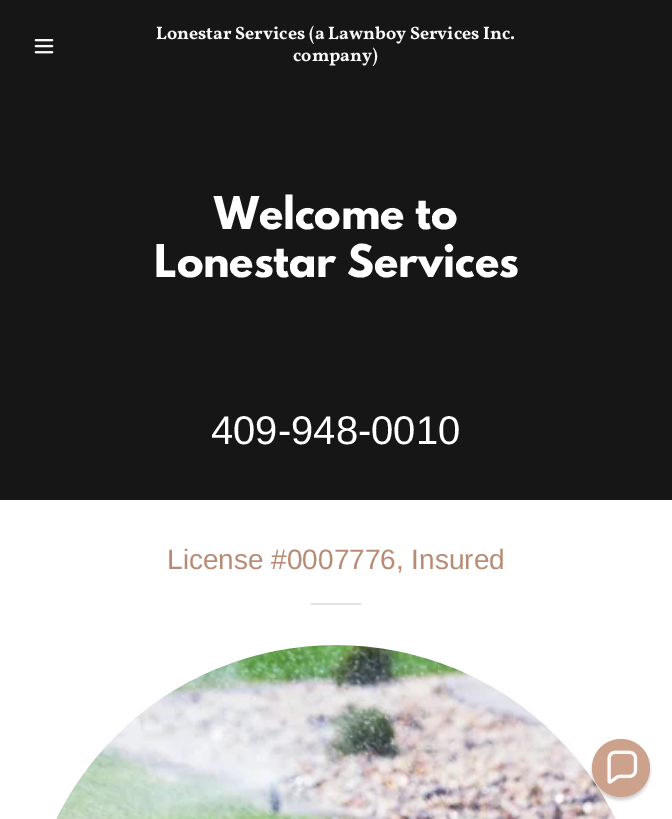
%!PS
<< /PageSize [672 819] /PageUsesTransparency true >> setpagedevice
/rgb { 3 { 255 div 3 1 roll } repeat setrgbcolor } def
/font { [ exch dup neg 0 0 3 -1 roll 0 0 ] selectfont } def
/alpha { dup .setfillconstantalpha .setstrokeconstantalpha } def
/circle { newpath 0 360 arc closepath } def
/roundrect { 5 dict begin { /r /h /w /y /x } { exch def } forall
  x r add y moveto x w add y 2 copy h add r arct x w add y h add x 1 index r arct
  x y h add x y r arct x y 2 copy exch w add exch r arct closepath end } def
/shadow { 12 dict begin { /a /b /q /h /w /y /x } { exch def } forall gsave /was 0 def
  9 -2 -9 { dup b mul 4 div /e exch def 1 sub .425 mul 2.718 exch exp 1 add a .99 .min exch div /now exch def
    1 1 now sub 1 was sub div sub alpha /was now def
    w h .min e 2 mul add 0 gt { x e sub y e sub w e 2 mul add h e 2 mul add
      q e add b .6 mul add w h .min 2 div e add .min 0 .max roundrect fill } if } for grestore end } def
/picture { 5 dict begin { /h /w /y /x /name } { exch def } forall
  gsave x y translate w h scale
  w h 8 [w 0 0 h 0 0] name (r) file false 3 colorimage grestore end } def
0 .pushpdf14devicefilter
0 819 translate 1 -1 scale
4 setmiterlimit
22 22 22 rgb
0 0 672 819 rectfill
(img/1.rgb) 34 39 20 15 picture
255 255 255 rgb
0 500 672 319 rectfill
226 226 226 rgb
311 603 50 2 rectfill
(img/2.rgb) 56 645 560 174 picture
0 0 0 rgb
592 742 58 58 29 1.5 0.19 shadow
205 162 140 rgb
621 768 29 circle fill
(img/3.rgb) 607 750 31 34 picture
/Vollkorn-Bold 18 font
247 247 247 rgb
156 39 moveto (Lonestar Services \(a Lawnboy Services Inc.) show
293 61 moveto (company\)) show
/LeagueSpartan-Bold 40 font
255 255 255 rgb
214 229 moveto (Welcome to) show
154 277 moveto (Lonestar Services) show
/LiberationSans-Regular 40 font
211 444 moveto (409-948-0010) show
/LiberationSans-Regular 28 font
184 139 116 rgb
167 569 moveto (License #0007776, Insured) show
.poppdf14devicefilter showpage
